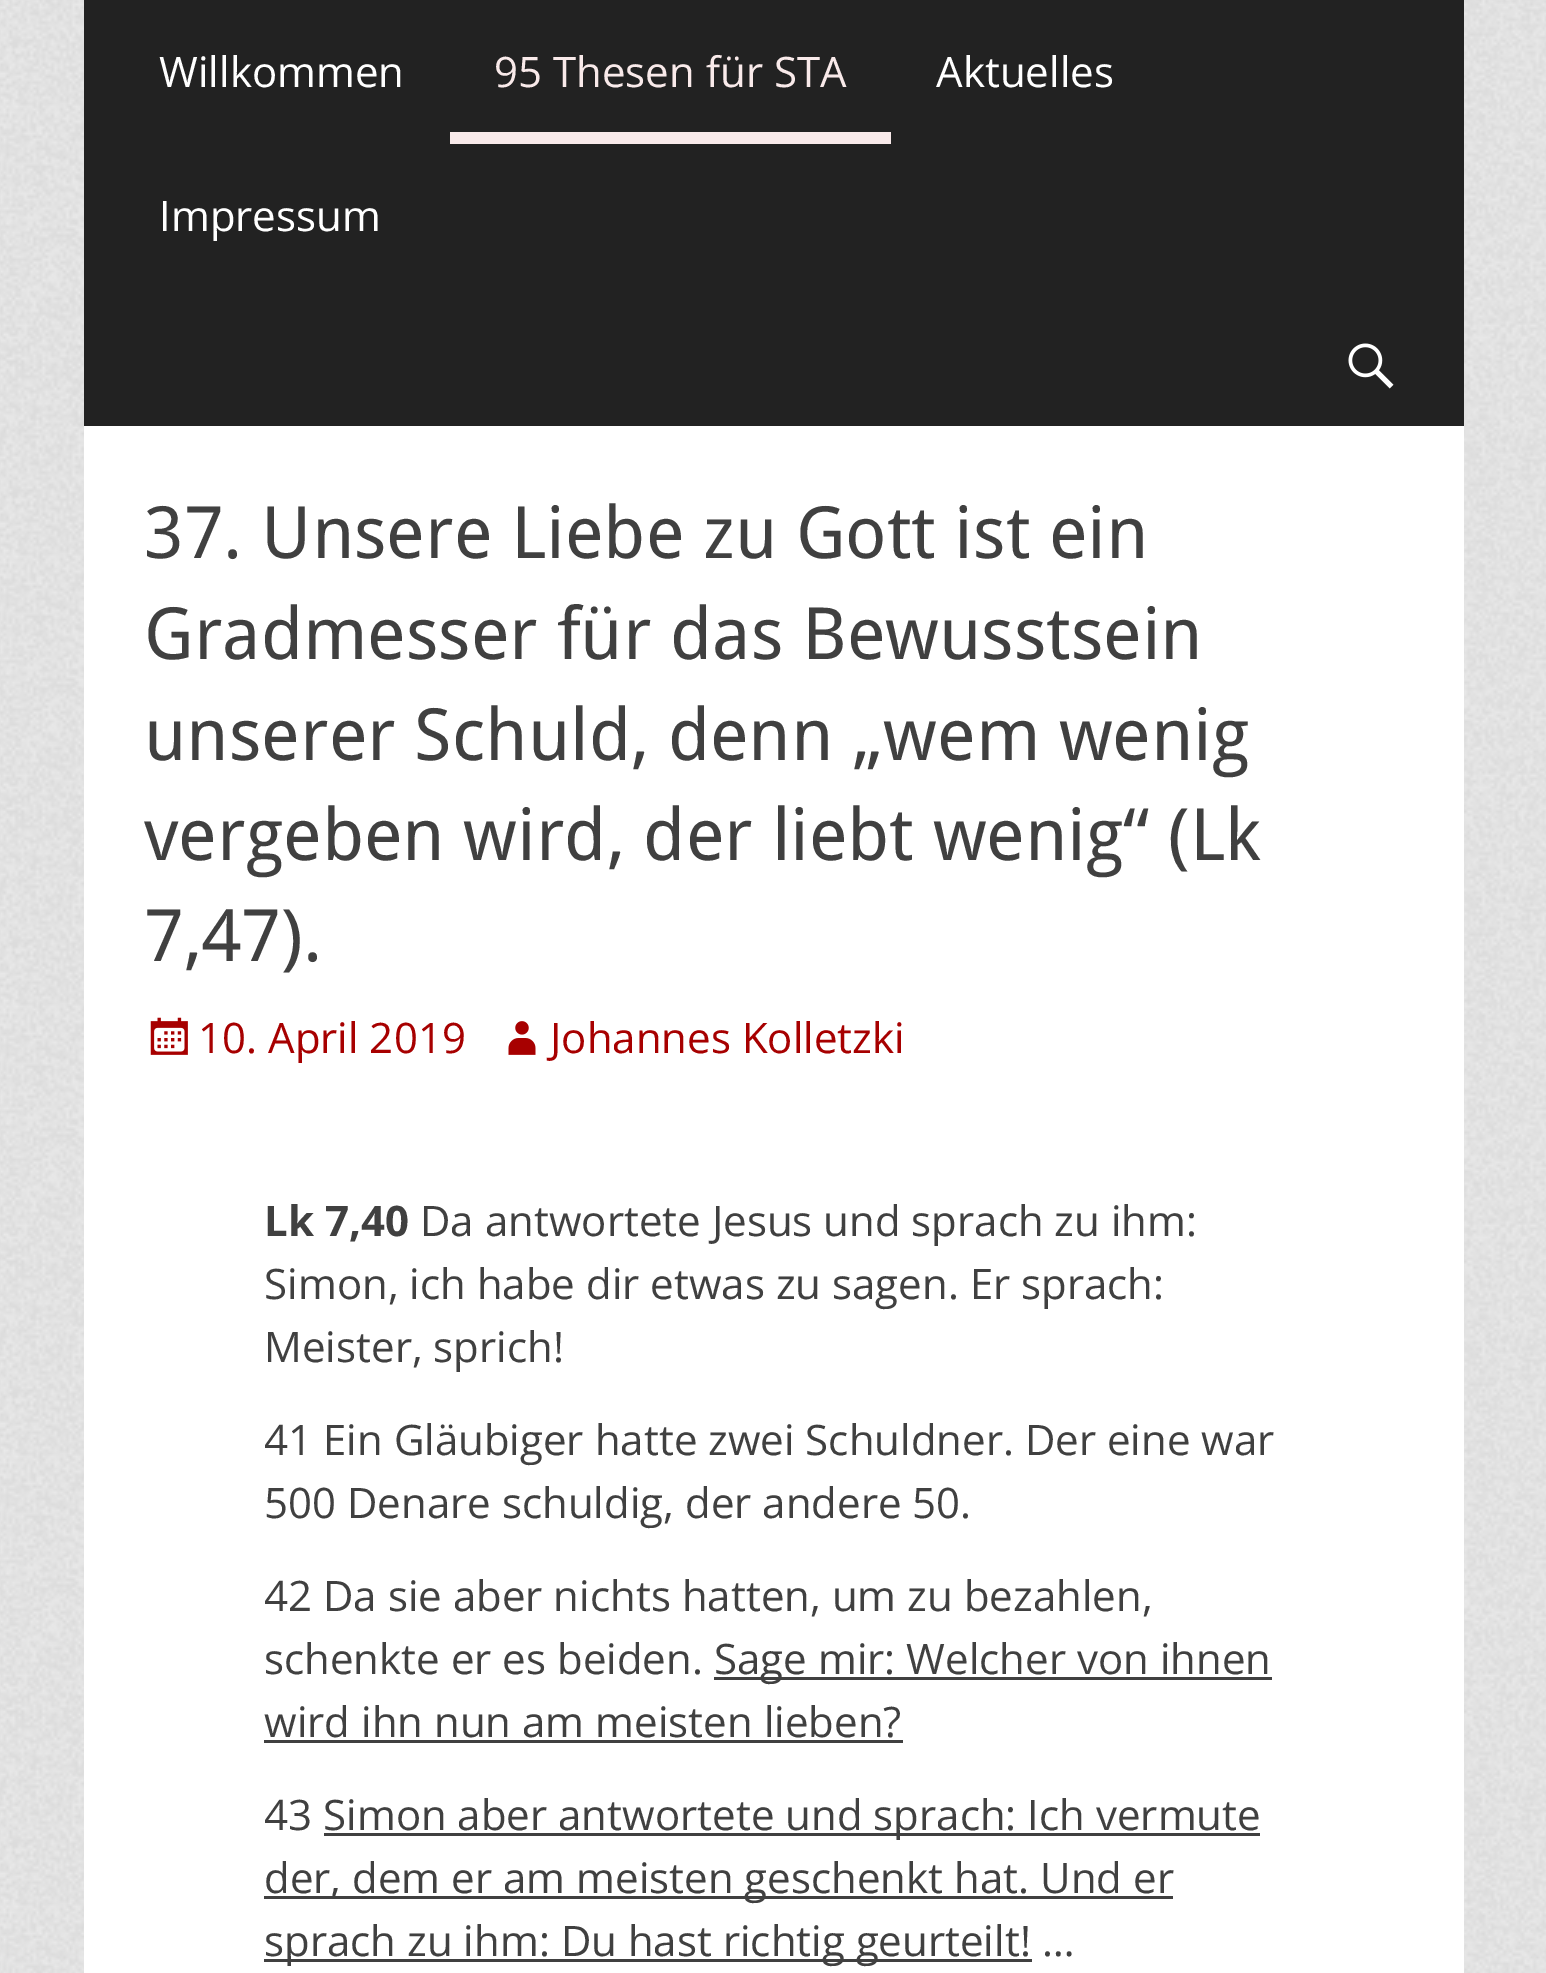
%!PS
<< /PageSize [1546 1973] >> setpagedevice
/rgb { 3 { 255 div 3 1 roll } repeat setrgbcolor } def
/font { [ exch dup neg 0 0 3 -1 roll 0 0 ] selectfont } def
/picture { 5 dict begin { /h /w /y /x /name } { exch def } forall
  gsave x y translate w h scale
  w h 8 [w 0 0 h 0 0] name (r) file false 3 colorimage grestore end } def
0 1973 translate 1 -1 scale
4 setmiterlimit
255 255 255 rgb
0 0 1546 1973 rectfill
(img/1.rgb) 0 0 1546 1973 picture
34 34 34 rgb
84 0 1380 426 rectfill
249 234 234 rgb
450 132 441 12 rectfill
(img/2.rgb) 1348 343 46 46 picture
255 255 255 rgb
84 426 1380 1547 rectfill
(img/3.rgb) 150 1017 38 38 picture
(img/4.rgb) 508 1021 28 34 picture
[
  [714 1677 558 3 64 64 64]
  [264 1740 639 3 64 64 64]
  [324 1833 936 3 64 64 64]
  [264 1896 909 3 64 64 64]
  [264 1959 768 3 64 64 64]
] { aload pop rgb rectfill } forall
/OpenSans-Regular 42 font
255 255 255 rgb
159 87 moveto (Willkommen) show
249 234 234 rgb
494 87 moveto (95 Thesen für STA) show
255 255 255 rgb
936 87 moveto (Aktuelles) show
159 231 moveto (Impressum) show
/DroidSans-Regular 72 font
64 64 64 rgb
[
  [(37. Unsere Liebe zu Gott ist ein) 144 558]
  [(Gradmesser für das Bewusstsein) 144 659]
  [(unserer Schuld, denn „wem wenig) 144 760]
  [(vergeben wird, der liebt wenig“ \(Lk) 144 860]
  [(7,47\).) 144 961]
] { aload pop moveto show } forall
/OpenSans-Regular 42 font
167 0 0 rgb
198 1053 moveto (10. April 2019) show
550 1053 moveto (Johannes Kolletzki) show
/OpenSans-Bold 42 font
64 64 64 rgb
264 1236 moveto (Lk 7,40) show
/OpenSans-Regular 42 font
[
  [(Da antwortete Jesus und sprach zu ihm:) 420 1236]
  [(Simon, ich habe dir etwas zu sagen. Er sprach:) 264 1299]
  [(Meister, sprich!) 264 1362]
  [(41 Ein Gläubiger hatte zwei Schuldner. Der eine war) 264 1455]
  [(500 Denare schuldig, der andere 50.) 264 1518]
  [(42 Da sie aber nichts hatten, um zu bezahlen,) 264 1611]
  [(schenkte er es beiden.) 264 1674]
  [(Sage mir: Welcher von ihnen) 714 1674]
  [(wird ihn nun am meisten lieben?) 264 1737]
  [(43) 264 1830]
  [(Simon aber antwortete und sprach: Ich vermute) 323 1830]
  [(der, dem er am meisten geschenkt hat. Und er) 264 1893]
  [(sprach zu ihm: Du hast richtig geurteilt! …) 264 1956]
] { aload pop moveto show } forall
showpage
